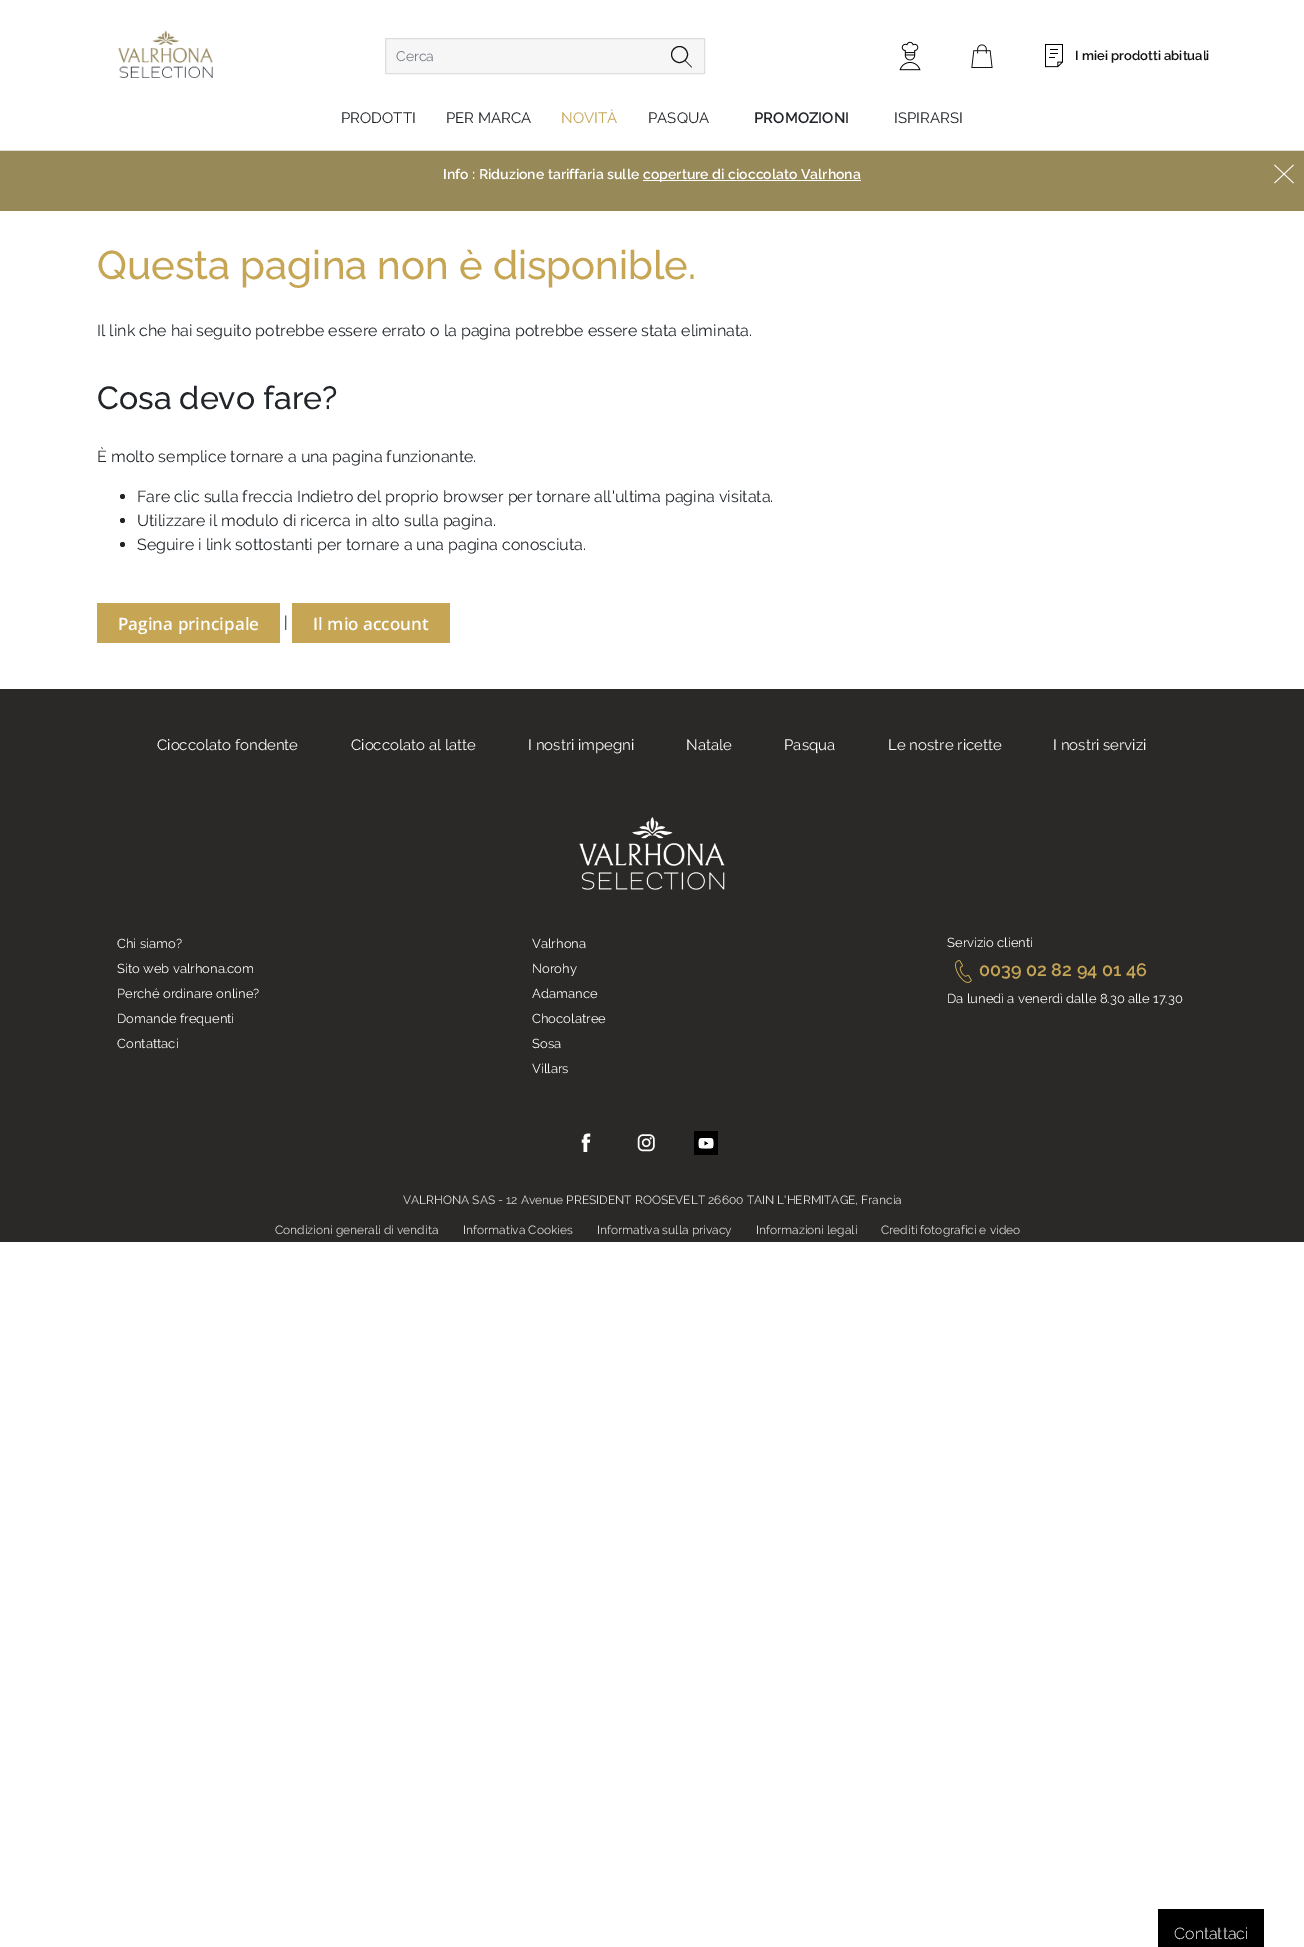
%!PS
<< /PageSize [1304 1947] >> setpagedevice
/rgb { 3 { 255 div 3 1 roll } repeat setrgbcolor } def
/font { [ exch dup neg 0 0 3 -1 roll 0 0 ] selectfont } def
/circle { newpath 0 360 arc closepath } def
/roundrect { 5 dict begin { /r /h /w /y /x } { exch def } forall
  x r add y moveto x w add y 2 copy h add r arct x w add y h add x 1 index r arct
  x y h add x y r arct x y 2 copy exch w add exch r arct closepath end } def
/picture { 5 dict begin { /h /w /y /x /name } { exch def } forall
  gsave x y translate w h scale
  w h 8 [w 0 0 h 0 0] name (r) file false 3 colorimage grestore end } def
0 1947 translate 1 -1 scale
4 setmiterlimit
255 255 255 rgb
0 0 1304 1947 rectfill
221 221 221 rgb
0 150 1304 1 rectfill
(img/1.rgb) 118 30 95 48 picture
246 246 246 rgb
385.5 38.5 319 35 0.5 roundrect gsave fill grestore
221 221 221 rgb
stroke
17 17 17 rgb
691.5 67.5 moveto 685 61 lineto 685.5 60.5 lineto 692 67 lineto closepath fill
679.5 54.5 8 circle stroke
(img/2.rgb) 899 41 22 30 picture
(img/3.rgb) 971 44 22 24 picture
(img/4.rgb) 1045 44 18 24 picture
152 137 89 rgb
0 151 1304 60 rectfill
255 255 255 rgb
643 180 218 1 rectfill
(img/5.rgb) 1274 164 20 20 picture
33 37 41 rgb
122.5 496.5 2.5 circle fill
122.5 520.5 2.5 circle fill
122.5 544.5 2.5 circle fill
[
  [97 603 183 40 198 165 84]
  [292 603 158 40 198 165 84]
  [0 689 1304 553 42 41 39]
] { aload pop rgb rectfill } forall
(img/6.rgb) 579 817 146 73 picture
(img/7.rgb) 955 960 17 23 picture
(img/8.rgb) 581 1133 10 19 picture
(img/9.rgb) 637 1134 18 18 picture
(img/10.rgb) 694 1131 24 24 picture
0 0 0 rgb
1158 1909 106 38 rectfill
/Raleway-Regular 14 font
118 125 136 rgb
396 61 moveto (Cerca) show
/Raleway-SemiBold 13 font
17 17 17 rgb
1075 60 moveto (I miei prodotti abituali) show
/Raleway-Regular 15 font
33 37 41 rgb
341 123 moveto (PRODOTTI) show
446 123 moveto (PER MARCA) show
198 165 84 rgb
561 123 moveto (NOVITÀ) show
33 37 41 rgb
648 123 moveto (PASQUA) show
/Raleway-SemiBold 15 font
754 123 moveto (PROMOZIONI) show
/Raleway-Regular 15 font
894 123 moveto (ISPIRARSI) show
/Raleway-SemiBold 14 font
255 255 255 rgb
443 179 moveto (Info : Riduzione tariffaria sulle) show
643 179 moveto (coperture di cioccolato Valrhona) show
/Raleway-Medium 40 font
198 165 84 rgb
97 279 moveto (Questa pagina non è disponible.) show
/Raleway-Regular 16 font
33 37 41 rgb
97 336 moveto (Il link che hai seguito potrebbe essere errato o la pagina potrebbe essere stata eliminata.) show
/Raleway-Medium 32 font
97 409 moveto (Cosa devo fare?) show
/Raleway-Regular 16 font
[
  [(È molto semplice tornare a una pagina funzionante.) 97 462]
  [(Fare clic sulla freccia Indietro del proprio browser per tornare all'ultima pagina visitata.) 137 502]
  [(Utilizzare il modulo di ricerca in alto sulla pagina.) 137 526]
  [(Seguire i link sottostanti per tornare a una pagina conosciuta.) 137 550]
] { aload pop moveto show } forall
/OpenSans-SemiBold 17 font
255 255 255 rgb
118 630 moveto (Pagina principale) show
/Raleway-Regular 16 font
33 37 41 rgb
284 628 moveto (|) show
/OpenSans-SemiBold 17 font
255 255 255 rgb
313 630 moveto (Il mio account) show
/Raleway-Regular 15 font
[
  [(Cioccolato fondente) 157 750]
  [(Cioccolato al latte) 351 750]
  [(I nostri impegni) 528 750]
  [(Natale) 686 750]
  [(Pasqua) 784 750]
  [(Le nostre ricette) 888 750]
  [(I nostri servizi) 1053 750]
] { aload pop moveto show } forall
/Raleway-Regular 13 font
[
  [(Chi siamo?) 117 948]
  [(Sito web valrhona.com) 117 973]
  [(Perché ordinare online?) 117 998]
  [(Domande frequenti) 117 1023]
  [(Contattaci) 117 1048]
  [(Valrhona) 532 948]
  [(Norohy) 532 973]
  [(Adamance) 532 998]
  [(Chocolatree) 532 1023]
  [(Sosa) 532 1048]
  [(Villars) 532 1073]
  [(Servizio clienti) 947 947]
] { aload pop moveto show } forall
/Raleway-SemiBold 18 font
198 165 84 rgb
979 976 moveto (0039 02 82 94 01 46) show
/Raleway-Regular 13 font
255 255 255 rgb
947 1003 moveto (Da lunedì a venerdì dalle 8.30 alle 17.30) show
/Raleway-Regular 12 font
221 221 221 rgb
[
  [(VALRHONA SAS - 12 Avenue PRESIDENT ROOSEVELT 26600 TAIN L'HERMITAGE, Francia) 403 1204]
  [(Condizioni generali di vendita) 275 1234]
  [(Informativa Cookies) 463 1234]
  [(Informativa sulla privacy) 597 1234]
  [(Informazioni legali) 756 1234]
  [(Crediti fotografici e video) 881 1234]
] { aload pop moveto show } forall
/Raleway-Light 16 font
255 255 255 rgb
1174 1939 moveto (Contattaci) show
showpage
